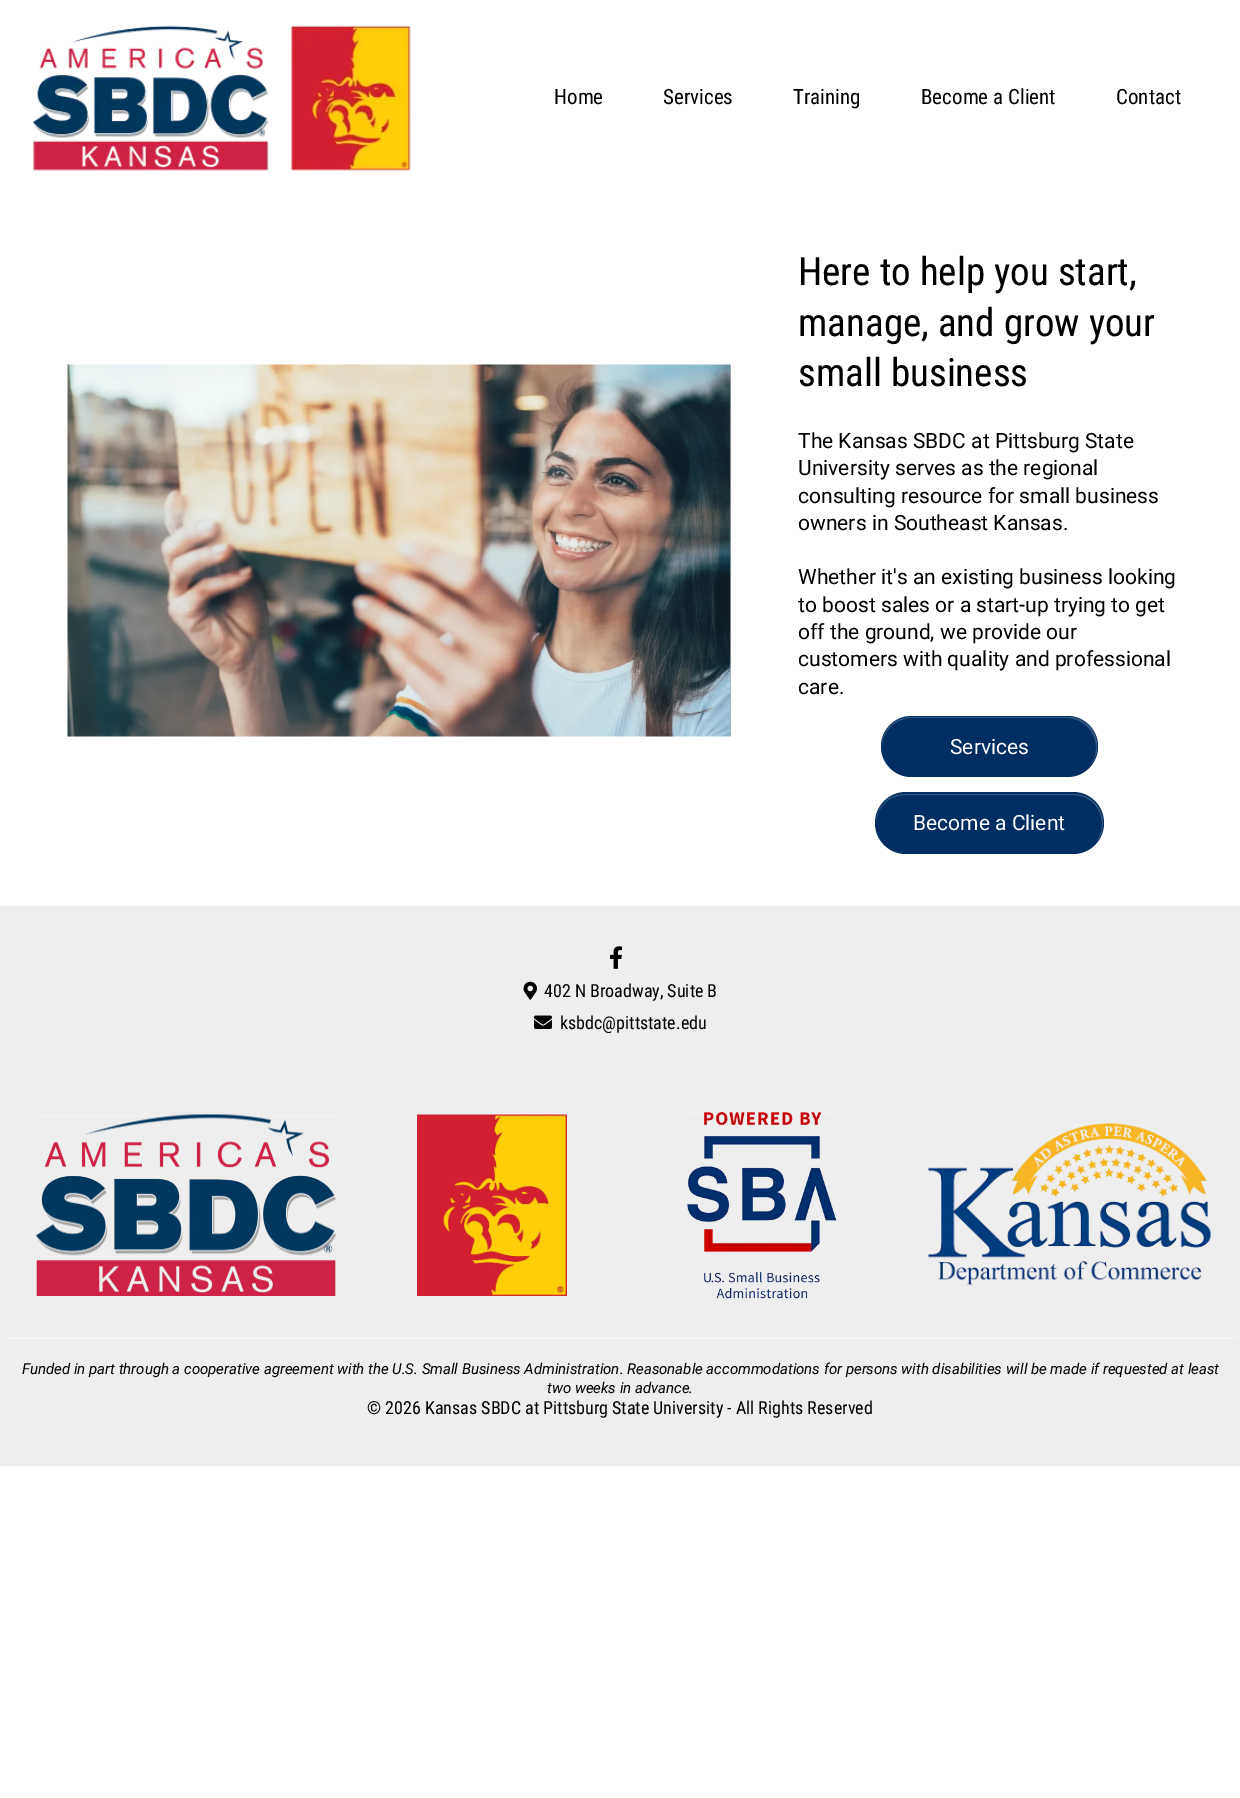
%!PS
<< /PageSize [1240 1798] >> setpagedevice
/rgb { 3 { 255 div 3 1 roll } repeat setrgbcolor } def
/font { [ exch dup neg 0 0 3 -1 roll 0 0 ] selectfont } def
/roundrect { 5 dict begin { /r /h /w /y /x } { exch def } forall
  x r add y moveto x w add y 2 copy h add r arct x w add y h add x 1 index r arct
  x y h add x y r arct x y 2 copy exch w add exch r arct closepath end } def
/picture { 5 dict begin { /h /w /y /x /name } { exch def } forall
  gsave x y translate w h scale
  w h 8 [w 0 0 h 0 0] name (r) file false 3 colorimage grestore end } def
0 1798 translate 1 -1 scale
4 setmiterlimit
255 255 255 rgb
0 0 1240 1798 rectfill
(img/1.rgb) 33 25 378 146 picture
(img/2.rgb) 67 364 664 373 picture
0 46 98 rgb
881 716 217 61 30.5 roundrect fill
51 88 129 rgb
911 718 moveto 1067 718 lineto 1083 718 1096 732 1096 748 curveto 1096 754 1094 760 1091 765 curveto 1095 760 1097 753 1097 746 curveto 1097 730 1084 717 1068 717 curveto 912 717 lineto 895 717 882 730 882 746 curveto 882 747 lineto 882 732 895 718 911 718 curveto closepath fill
0 46 98 rgb
875 792 229 62 31 roundrect fill
51 88 129 rgb
905 795 moveto 1073 795 lineto 1089 795 1102 808 1102 824 curveto 1102 830 1100 836 1097 841 curveto 1101 836 1103 830 1103 823 curveto 1103 807 1090 794 1074 794 curveto 905 794 lineto 889 794 876 807 876 823 curveto 876 824 lineto 876 808 889 795 905 795 curveto closepath fill
238 238 238 rgb
0 906 1240 560 rectfill
(img/3.rgb) 610 946 13 23 picture
(img/4.rgb) 523 981 14 19 picture
(img/5.rgb) 534 1015 18 14 picture
[
  [0 1074 1240 2 241 241 241]
  [8 1082 1225 2 241 241 241]
  [36 1115 300 2 241 241 241]
] { aload pop rgb rectfill } forall
(img/6.rgb) 36 1114 300 182 picture
(img/7.rgb) 417 1114 150 182 picture
687 1112 150 2 rectfill
(img/8.rgb) 687 1111 150 188 picture
929 1124 282 2 rectfill
(img/9.rgb) 928 1123 283 163 picture
0 1337 1240 2 rectfill
244 244 244 rgb
8 1337 1225 2 rectfill
/RobotoCondensed-Regular 21 font
0 0 0 rgb
[
  [(Home) 554 104]
  [(Services) 663 104]
  [(Training) 793 104]
  [(Become a Client) 921 104]
  [(Contact) 1116 104]
] { aload pop moveto show } forall
/RobotoCondensed-Regular 39 font
[
  [(Here to help you start,) 798 285]
  [(manage, and grow your) 798 336]
  [(small business) 798 386]
] { aload pop moveto show } forall
/Roboto-Regular 21 font
[
  [(The Kansas SBDC at Pittsburg State) 798 448]
  [(University serves as the regional) 798 475]
  [(consulting resource for small business) 798 503]
  [(owners in Southeast Kansas.) 798 530]
  [(Whether it's an existing business looking) 798 584]
  [(to boost sales or a start-up trying to get) 798 612]
  [(off the ground, we provide our) 798 639]
  [(customers with quality and professional) 798 666]
  [(care.) 798 694]
] { aload pop moveto show } forall
255 255 255 rgb
950 754 moveto (Services) show
913 830 moveto (Become a Client) show
/RobotoCondensed-Regular 18 font
0 0 0 rgb
544 997 moveto (402 N Broadway, Suite B) show
560 1029 moveto (ksbdc@pittstate.edu) show
/Roboto-Italic 15 font
22 1374 moveto (Funded in part through a cooperative agreement with the U.S. Small Business Administration. Reasonable accommodations for persons with disabilities will be made if requested at least) show
547 1393 moveto (two weeks in advance.) show
/RobotoCondensed-Regular 18 font
367 1414 moveto (© 2026 Kansas SBDC at Pittsburg State University - All Rights Reserved) show
showpage
